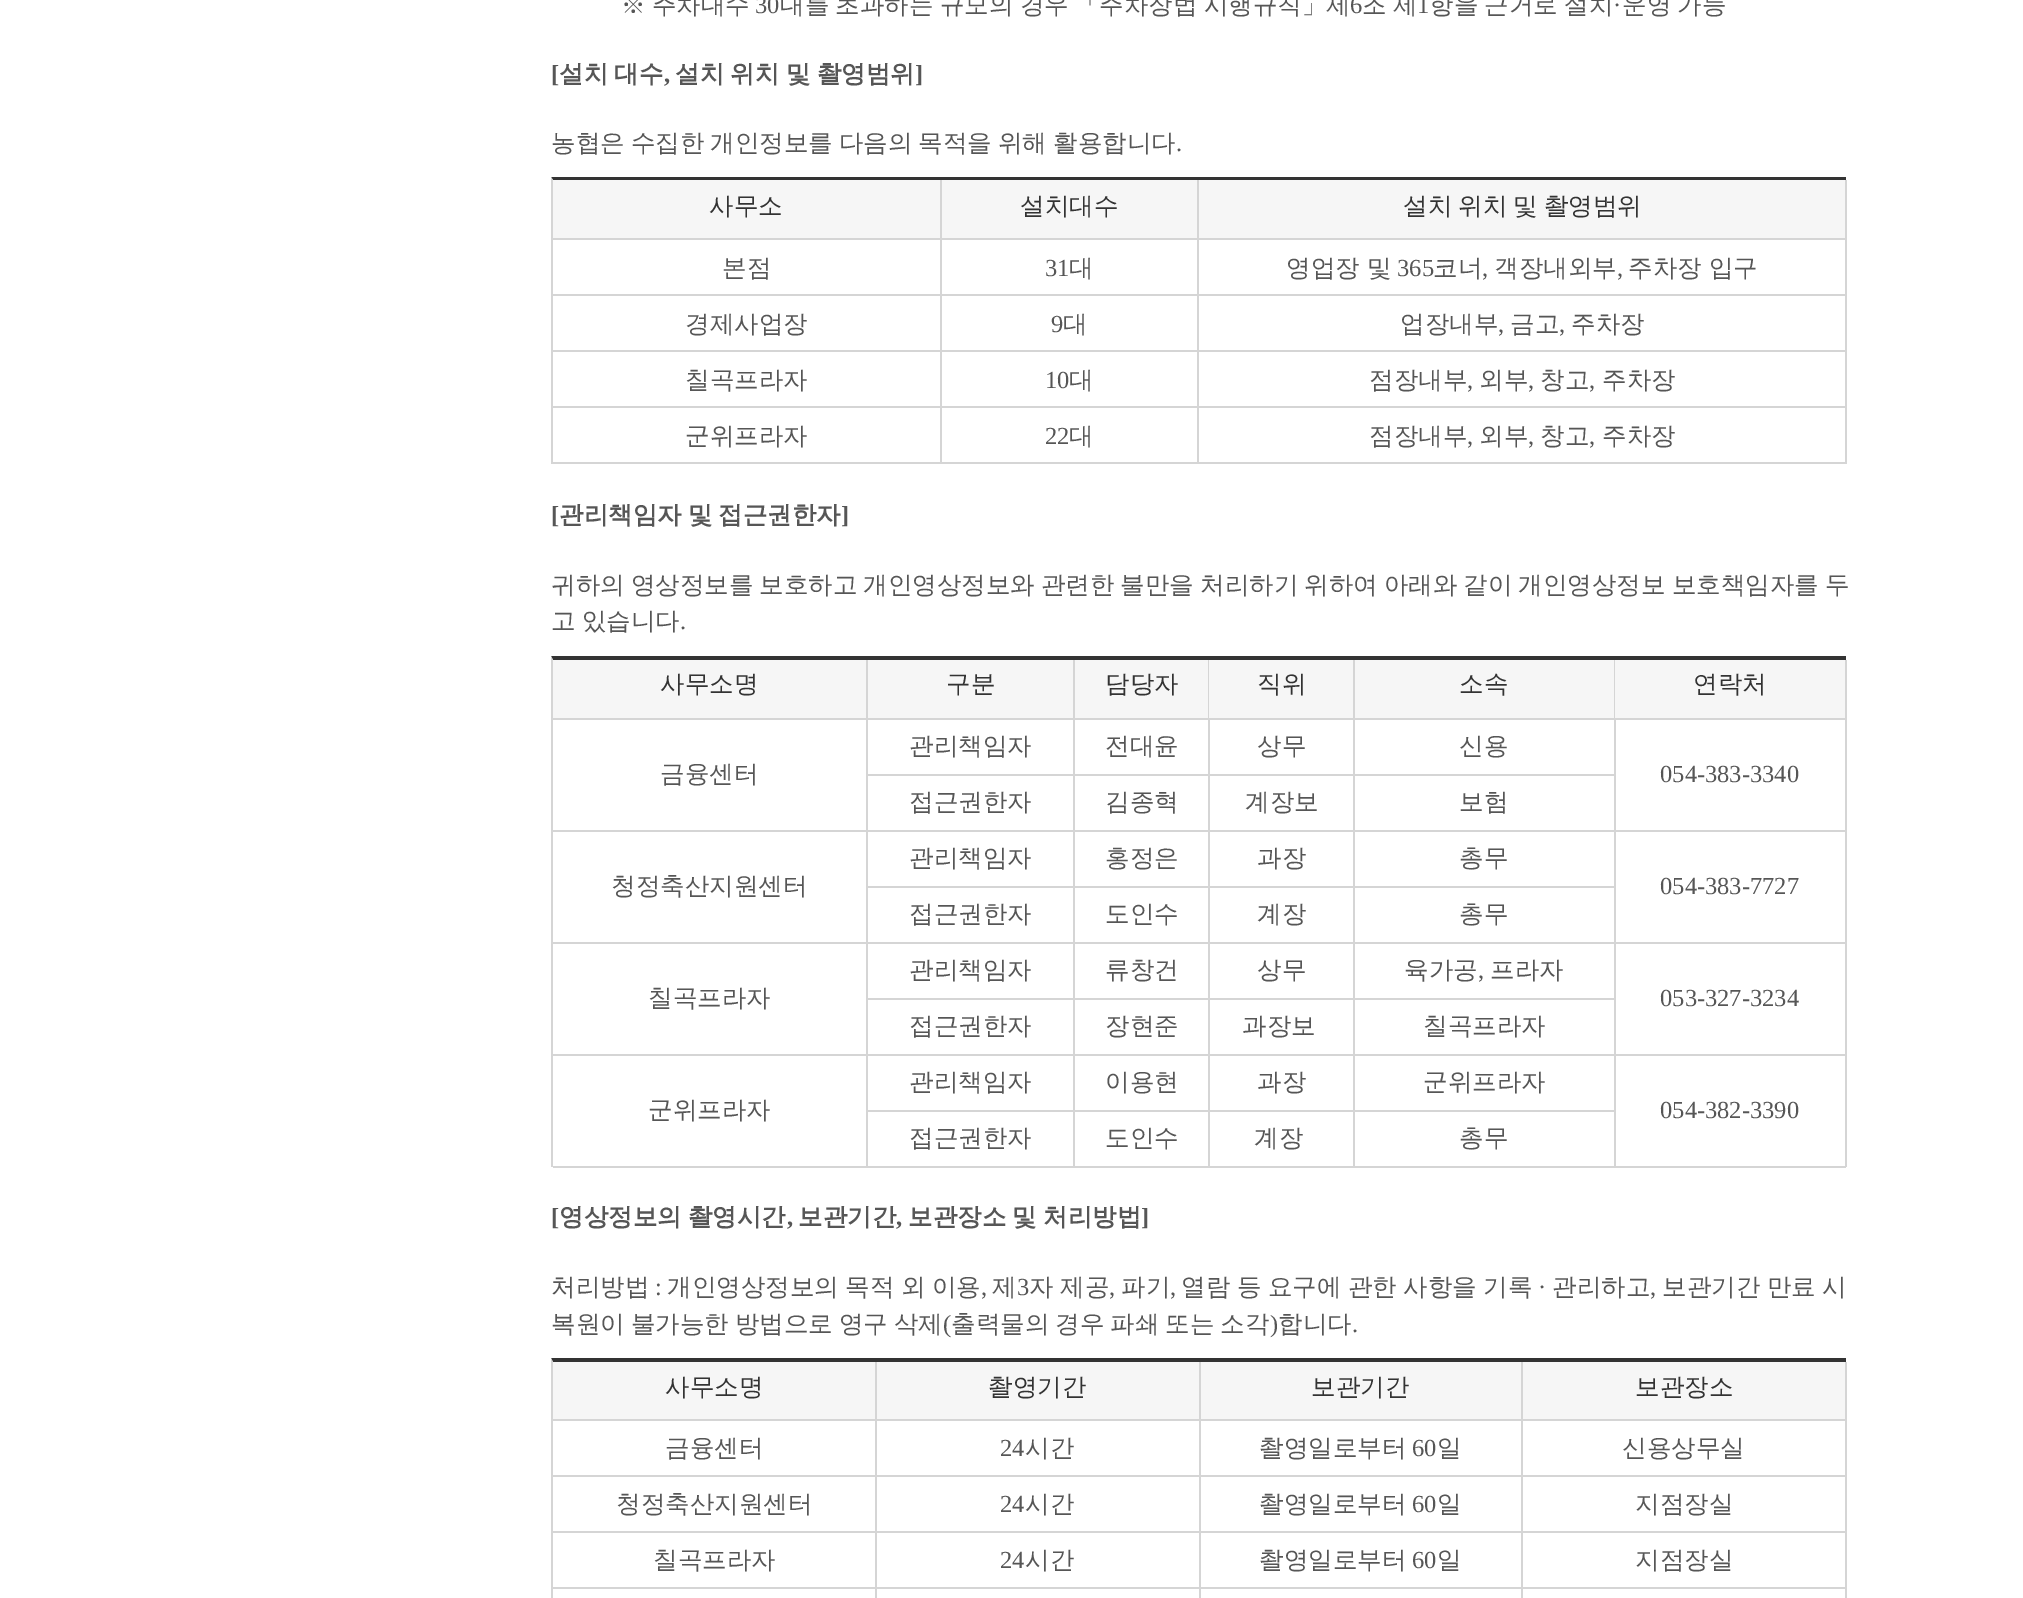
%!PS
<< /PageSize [2023 1598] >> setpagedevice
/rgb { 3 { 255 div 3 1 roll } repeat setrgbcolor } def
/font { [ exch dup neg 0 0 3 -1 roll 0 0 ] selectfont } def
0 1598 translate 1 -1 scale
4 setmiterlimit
255 255 255 rgb
0 0 2023 1598 rectfill
51 51 51 rgb
551 177 moveto 1846 177 lineto 1846 180 lineto 553 180 lineto closepath fill
213 213 213 rgb
551 464 moveto 551 177 lineto 553 180 lineto 553 464 lineto closepath fill
[
  [553 180 387 58 246 246 246]
  [940 180 2 284 213 213 213]
  [553 238 389 2 213 213 213]
  [942 180 255 58 246 246 246]
  [1197 180 2 284 213 213 213]
  [942 238 257 2 213 213 213]
  [1199 180 646 58 246 246 246]
  [1845 180 2 284 213 213 213]
  [1199 238 647 2 213 213 213]
  [553 294 1293 2 213 213 213]
  [553 350 1293 2 213 213 213]
  [553 406 1293 2 213 213 213]
  [553 462 1293 2 213 213 213]
] { aload pop rgb rectfill } forall
51 51 51 rgb
551 656 moveto 1846 656 lineto 1846 660 lineto 553 660 lineto closepath fill
213 213 213 rgb
551 1167 moveto 551 656 lineto 553 660 lineto 553 1167 lineto closepath fill
[
  [553 660 313 58 246 246 246]
  [866 660 2 59 213 213 213]
  [553 718 315 2 213 213 213]
  [868 660 205 58 246 246 246]
  [1073 660 2 59 213 213 213]
  [868 718 207 2 213 213 213]
  [1075 660 133 58 246 246 246]
  [1208 660 1 59 213 213 213]
  [1075 718 134 2 213 213 213]
  [1209 660 144 58 246 246 246]
  [1353 660 2 59 213 213 213]
  [1209 718 146 2 213 213 213]
  [1355 660 259 58 246 246 246]
  [1614 660 1 59 213 213 213]
  [1355 718 260 2 213 213 213]
  [1615 660 230 58 246 246 246]
  [1845 660 2 59 213 213 213]
  [1615 718 231 2 213 213 213]
  [1073 719 2 56 213 213 213]
  [868 774 207 2 213 213 213]
  [1208 719 2 56 213 213 213]
  [1075 774 134 2 213 213 213]
  [1353 719 2 56 213 213 213]
  [1209 774 146 2 213 213 213]
  [1614 719 2 56 213 213 213]
  [1355 774 260 2 213 213 213]
  [866 719 2 112 213 213 213]
  [553 830 315 2 213 213 213]
  [1845 719 2 112 213 213 213]
  [1615 830 231 2 213 213 213]
  [1073 775 2 56 213 213 213]
  [868 830 207 2 213 213 213]
  [1208 775 2 56 213 213 213]
  [1075 830 134 2 213 213 213]
  [1353 775 2 56 213 213 213]
  [1209 830 146 2 213 213 213]
  [1614 775 2 56 213 213 213]
  [1355 830 260 2 213 213 213]
  [1073 831 2 56 213 213 213]
  [868 886 207 2 213 213 213]
  [1208 831 2 56 213 213 213]
  [1075 886 134 2 213 213 213]
  [1353 831 2 56 213 213 213]
  [1209 886 146 2 213 213 213]
  [1614 831 2 56 213 213 213]
  [1355 886 260 2 213 213 213]
  [866 831 2 112 213 213 213]
  [553 942 315 2 213 213 213]
  [1845 831 2 112 213 213 213]
  [1615 942 231 2 213 213 213]
  [1073 887 2 56 213 213 213]
  [868 942 207 2 213 213 213]
  [1208 887 2 56 213 213 213]
  [1075 942 134 2 213 213 213]
  [1353 887 2 56 213 213 213]
  [1209 942 146 2 213 213 213]
  [1614 887 2 56 213 213 213]
  [1355 942 260 2 213 213 213]
  [1073 943 2 56 213 213 213]
  [868 998 207 2 213 213 213]
  [1208 943 2 56 213 213 213]
  [1075 998 134 2 213 213 213]
  [1353 943 2 56 213 213 213]
  [1209 998 146 2 213 213 213]
  [1614 943 2 56 213 213 213]
  [1355 998 260 2 213 213 213]
  [866 943 2 112 213 213 213]
  [553 1054 315 2 213 213 213]
  [1845 943 2 112 213 213 213]
  [1615 1054 231 2 213 213 213]
  [1073 999 2 56 213 213 213]
  [868 1054 207 2 213 213 213]
  [1208 999 2 56 213 213 213]
  [1075 1054 134 2 213 213 213]
  [1353 999 2 56 213 213 213]
  [1209 1054 146 2 213 213 213]
  [1614 999 2 56 213 213 213]
  [1355 1054 260 2 213 213 213]
  [1073 1055 2 56 213 213 213]
  [868 1110 207 2 213 213 213]
  [1208 1055 2 56 213 213 213]
  [1075 1110 134 2 213 213 213]
  [1353 1055 2 56 213 213 213]
  [1209 1110 146 2 213 213 213]
  [1614 1055 2 56 213 213 213]
  [1355 1110 260 2 213 213 213]
  [866 1055 2 112 213 213 213]
  [553 1166 315 2 213 213 213]
  [1845 1055 2 112 213 213 213]
  [1615 1166 231 2 213 213 213]
  [1073 1111 2 56 213 213 213]
  [868 1166 207 2 213 213 213]
  [1208 1111 2 56 213 213 213]
  [1075 1166 134 2 213 213 213]
  [1353 1111 2 56 213 213 213]
  [1209 1166 146 2 213 213 213]
  [1614 1111 2 56 213 213 213]
  [1355 1166 260 2 213 213 213]
] { aload pop rgb rectfill } forall
51 51 51 rgb
551 1358 moveto 1846 1358 lineto 1846 1362 lineto 553 1362 lineto closepath fill
213 213 213 rgb
551 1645 moveto 551 1358 lineto 553 1362 lineto 553 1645 lineto closepath fill
[
  [553 1362 322 57 246 246 246]
  [875 1362 2 236 213 213 213]
  [553 1419 324 2 213 213 213]
  [877 1362 322 57 246 246 246]
  [1199 1362 2 236 213 213 213]
  [877 1419 324 2 213 213 213]
  [1201 1362 320 57 246 246 246]
  [1521 1362 2 236 213 213 213]
  [1201 1419 322 2 213 213 213]
  [1523 1362 322 57 246 246 246]
  [1845 1362 2 236 213 213 213]
  [1523 1419 323 2 213 213 213]
  [553 1475 1293 2 213 213 213]
  [553 1531 1293 2 213 213 213]
  [553 1587 1293 2 213 213 213]
] { aload pop rgb rectfill } forall
/WenQuanYiZenHei-Medium 24.5 font
86 86 86 rgb
621 13 moveto -1 0 32 (※ 주차대수) widthshow
/LiberationSerif-Regular 24.5 font
755 13 moveto (30) show
/WenQuanYiZenHei-Medium 24.5 font
780 13 moveto -1 0 32 (대를 초과하는 규모의 경우 「주차장법 시행규칙」제) widthshow
/LiberationSerif-Regular 24.5 font
1350 13 moveto (6) show
/WenQuanYiZenHei-Medium 24.5 font
1362 13 moveto -1 0 32 (조 제) widthshow
/LiberationSerif-Regular 24.5 font
1417 13 moveto (1) show
/WenQuanYiZenHei-Medium 24.5 font
1429 13 moveto -1 0 32 (항을 근거로 설치) widthshow
/LiberationSerif-Regular 24.5 font
1613 13 moveto (·) show
/WenQuanYiZenHei-Medium 24.5 font
1622 13 moveto -1 0 32 (운영 가능) widthshow
/LiberationSerif-Bold 24.5 font
551 82 moveto ([) show
/WenQuanYiZenHei-Bold 24.5 font
559 82 moveto -1 0 32 (설치 대수) widthshow
/LiberationSerif-Bold 24.5 font
664 82 moveto (,) show
/WenQuanYiZenHei-Bold 24.5 font
675 82 moveto -1 0 32 (설치 위치 및 촬영범위) widthshow
/LiberationSerif-Bold 24.5 font
915 82 moveto (]) show
/WenQuanYiZenHei-Medium 24.5 font
551 151 moveto -1.25 0 32 (농협은 수집한 개인정보를 다음의 목적을 위해 활용합니다) widthshow
/LiberationSerif-Regular 24.5 font
1176 151 moveto (.) show
/WenQuanYiZenHei-Medium 24.5 font
51 51 51 rgb
709 214 moveto (사무소) show
1020 214 moveto (설치대수) show
1403 214 moveto -1.25 0 32 (설치 위치 및 촬영범위) widthshow
86 86 86 rgb
722 276 moveto (본점) show
/LiberationSerif-Regular 24.5 font
1045 276 moveto (31) show
/WenQuanYiZenHei-Medium 24.5 font
1069 276 moveto (대) show
1286 276 moveto (영업장 및) show
/LiberationSerif-Regular 24.5 font
1397 276 moveto (365) show
/WenQuanYiZenHei-Medium 24.5 font
1433 276 moveto (코너) show
/LiberationSerif-Regular 24.5 font
1482 276 moveto (,) show
/WenQuanYiZenHei-Medium 24.5 font
1494 276 moveto (객장내외부) show
/LiberationSerif-Regular 24.5 font
1617 276 moveto (,) show
/WenQuanYiZenHei-Medium 24.5 font
1628 276 moveto (주차장 입구) show
685 332 moveto (경제사업장) show
/LiberationSerif-Regular 24.5 font
1051 332 moveto (9) show
/WenQuanYiZenHei-Medium 24.5 font
1063 332 moveto (대) show
1400 332 moveto (업장내부) show
/LiberationSerif-Regular 24.5 font
1498 332 moveto (,) show
/WenQuanYiZenHei-Medium 24.5 font
1510 332 moveto (금고) show
/LiberationSerif-Regular 24.5 font
1559 332 moveto (,) show
/WenQuanYiZenHei-Medium 24.5 font
1571 332 moveto (주차장) show
685 388 moveto (칠곡프라자) show
/LiberationSerif-Regular 24.5 font
1045 388 moveto (10) show
/WenQuanYiZenHei-Medium 24.5 font
1069 388 moveto (대) show
1369 388 moveto (점장내부) show
/LiberationSerif-Regular 24.5 font
1467 388 moveto (,) show
/WenQuanYiZenHei-Medium 24.5 font
1479 388 moveto (외부) show
/LiberationSerif-Regular 24.5 font
1528 388 moveto (,) show
/WenQuanYiZenHei-Medium 24.5 font
1540 388 moveto (창고) show
/LiberationSerif-Regular 24.5 font
1589 388 moveto (,) show
/WenQuanYiZenHei-Medium 24.5 font
1602 388 moveto (주차장) show
685 444 moveto (군위프라자) show
/LiberationSerif-Regular 24.5 font
1045 444 moveto (22) show
/WenQuanYiZenHei-Medium 24.5 font
1069 444 moveto (대) show
1369 444 moveto (점장내부) show
/LiberationSerif-Regular 24.5 font
1467 444 moveto (,) show
/WenQuanYiZenHei-Medium 24.5 font
1479 444 moveto (외부) show
/LiberationSerif-Regular 24.5 font
1528 444 moveto (,) show
/WenQuanYiZenHei-Medium 24.5 font
1540 444 moveto (창고) show
/LiberationSerif-Regular 24.5 font
1589 444 moveto (,) show
/WenQuanYiZenHei-Medium 24.5 font
1602 444 moveto (주차장) show
/LiberationSerif-Bold 24.5 font
551 523 moveto ([) show
/WenQuanYiZenHei-Bold 24.5 font
559 523 moveto -1.25 0 32 (관리책임자 및 접근권한자) widthshow
/LiberationSerif-Bold 24.5 font
841 523 moveto (]) show
/WenQuanYiZenHei-Medium 24.5 font
551 593 moveto -1.25 0 32 (귀하의 영상정보를 보호하고 개인영상정보와 관련한 불만을 처리하기 위하여 아래와 같이 개인영상정보 보호책임자를 두) widthshow
551 629 moveto -1.25 0 32 (고 있습니다) widthshow
/LiberationSerif-Regular 24.5 font
680 629 moveto (.) show
/WenQuanYiZenHei-Medium 24.5 font
51 51 51 rgb
[
  [(사무소명) 660 692]
  [(구분) 946 692]
  [(담당자) 1105 692]
  [(직위) 1257 692]
  [(소속) 1459 692]
  [(연락처) 1693 692]
] { aload pop moveto show } forall
86 86 86 rgb
[
  [(관리책임자) 909 754]
  [(전대윤) 1105 754]
  [(상무) 1257 754]
  [(신용) 1459 754]
  [(금융센터) 660 782]
] { aload pop moveto show } forall
/LiberationSerif-Regular 24.5 font
1660 782 moveto (054-383-3340) show
/WenQuanYiZenHei-Medium 24.5 font
[
  [(접근권한자) 909 810]
  [(김종혁) 1105 810]
  [(계장보) 1245 810]
  [(보험) 1459 810]
  [(관리책임자) 909 866]
  [(홍정은) 1105 866]
  [(과장) 1257 866]
  [(총무) 1459 866]
  [(청정축산지원센터) 611 894]
] { aload pop moveto show } forall
/LiberationSerif-Regular 24.5 font
1660 894 moveto (054-383-7727) show
/WenQuanYiZenHei-Medium 24.5 font
[
  [(접근권한자) 909 922]
  [(도인수) 1105 922]
  [(계장) 1257 922]
  [(총무) 1459 922]
  [(관리책임자) 909 978]
  [(류창건) 1105 978]
  [(상무) 1257 978]
  [(육가공) 1404 978]
] { aload pop moveto show } forall
/LiberationSerif-Regular 24.5 font
1478 978 moveto (,) show
/WenQuanYiZenHei-Medium 24.5 font
1490 978 moveto (프라자) show
648 1006 moveto (칠곡프라자) show
/LiberationSerif-Regular 24.5 font
1660 1006 moveto (053-327-3234) show
/WenQuanYiZenHei-Medium 24.5 font
[
  [(접근권한자) 909 1034]
  [(장현준) 1105 1034]
  [(과장보) 1242 1034]
  [(칠곡프라자) 1423 1034]
  [(관리책임자) 909 1090]
  [(이용현) 1105 1090]
  [(과장) 1257 1090]
  [(군위프라자) 1423 1090]
  [(군위프라자) 648 1118]
] { aload pop moveto show } forall
/LiberationSerif-Regular 24.5 font
1660 1118 moveto (054-382-3390) show
/WenQuanYiZenHei-Medium 24.5 font
[
  [(접근권한자) 909 1146]
  [(도인수) 1105 1146]
  [(계장) 1254 1146]
  [(총무) 1459 1146]
] { aload pop moveto show } forall
/LiberationSerif-Bold 24.5 font
551 1225 moveto ([) show
/WenQuanYiZenHei-Bold 24.5 font
559 1225 moveto -1 0 32 (영상정보의 촬영시간) widthshow
/LiberationSerif-Bold 24.5 font
787 1225 moveto (,) show
/WenQuanYiZenHei-Bold 24.5 font
798 1225 moveto (보관기간) show
/LiberationSerif-Bold 24.5 font
896 1225 moveto (,) show
/WenQuanYiZenHei-Bold 24.5 font
908 1225 moveto -1 0 32 (보관장소 및 처리방법) widthshow
/LiberationSerif-Bold 24.5 font
1141 1225 moveto (]) show
/WenQuanYiZenHei-Medium 24.5 font
551 1295 moveto (처리방법) show
/LiberationSerif-Regular 24.5 font
655 1295 moveto (:) show
/WenQuanYiZenHei-Medium 24.5 font
667 1295 moveto -0.75 0 32 (개인영상정보의 목적 외 이용) widthshow
992 1295 moveto (제) show
/LiberationSerif-Regular 24.5 font
1017 1295 moveto (3) show
/WenQuanYiZenHei-Medium 24.5 font
1029 1295 moveto -0.75 0 32 (자 제공) widthshow
1121 1295 moveto (파기) show
1181 1295 moveto -0.75 0 32 (열람 등 요구에 관한 사항을 기록) widthshow
/LiberationSerif-Regular 24.5 font
1538 1295 moveto (·) show
/WenQuanYiZenHei-Medium 24.5 font
1552 1295 moveto (관리하고) show
1662 1295 moveto -0.75 0 32 (보관기간 만료 시) widthshow
/LiberationSerif-Regular 24.5 font
[
  [(,) 981 1295]
  [(,) 1109 1295]
  [(,) 1170 1295]
  [(,) 1650 1295]
] { aload pop moveto show } forall
/WenQuanYiZenHei-Medium 24.5 font
551 1332 moveto -1.25 0 32 (복원이 불가능한 방법으로 영구 삭제) widthshow
/LiberationSerif-Regular 24.5 font
943 1332 moveto (\() show
/WenQuanYiZenHei-Medium 24.5 font
951 1332 moveto -1.25 0 32 (출력물의 경우 파쇄 또는 소각) widthshow
/LiberationSerif-Regular 24.5 font
1270 1332 moveto (\)) show
/WenQuanYiZenHei-Medium 24.5 font
1278 1332 moveto (합니다) show
/LiberationSerif-Regular 24.5 font
1352 1332 moveto (.) show
/WenQuanYiZenHei-Medium 24.5 font
51 51 51 rgb
[
  [(사무소명) 665 1395]
  [(촬영기간) 988 1395]
  [(보관기간) 1311 1395]
  [(보관장소) 1635 1395]
] { aload pop moveto show } forall
86 86 86 rgb
665 1456 moveto (금융센터) show
/LiberationSerif-Regular 24.5 font
1000 1456 moveto (24) show
/WenQuanYiZenHei-Medium 24.5 font
1025 1456 moveto (시간) show
1259 1456 moveto (촬영일로부터) show
/LiberationSerif-Regular 24.5 font
1412 1456 moveto (60) show
/WenQuanYiZenHei-Medium 24.5 font
[
  [(일) 1437 1456]
  [(신용상무실) 1622 1456]
  [(청정축산지원센터) 616 1512]
] { aload pop moveto show } forall
/LiberationSerif-Regular 24.5 font
1000 1512 moveto (24) show
/WenQuanYiZenHei-Medium 24.5 font
1025 1512 moveto (시간) show
1259 1512 moveto (촬영일로부터) show
/LiberationSerif-Regular 24.5 font
1412 1512 moveto (60) show
/WenQuanYiZenHei-Medium 24.5 font
[
  [(일) 1437 1512]
  [(지점장실) 1635 1512]
  [(칠곡프라자) 653 1568]
] { aload pop moveto show } forall
/LiberationSerif-Regular 24.5 font
1000 1568 moveto (24) show
/WenQuanYiZenHei-Medium 24.5 font
1025 1568 moveto (시간) show
1259 1568 moveto (촬영일로부터) show
/LiberationSerif-Regular 24.5 font
1412 1568 moveto (60) show
/WenQuanYiZenHei-Medium 24.5 font
1437 1568 moveto (일) show
1635 1568 moveto (지점장실) show
showpage
